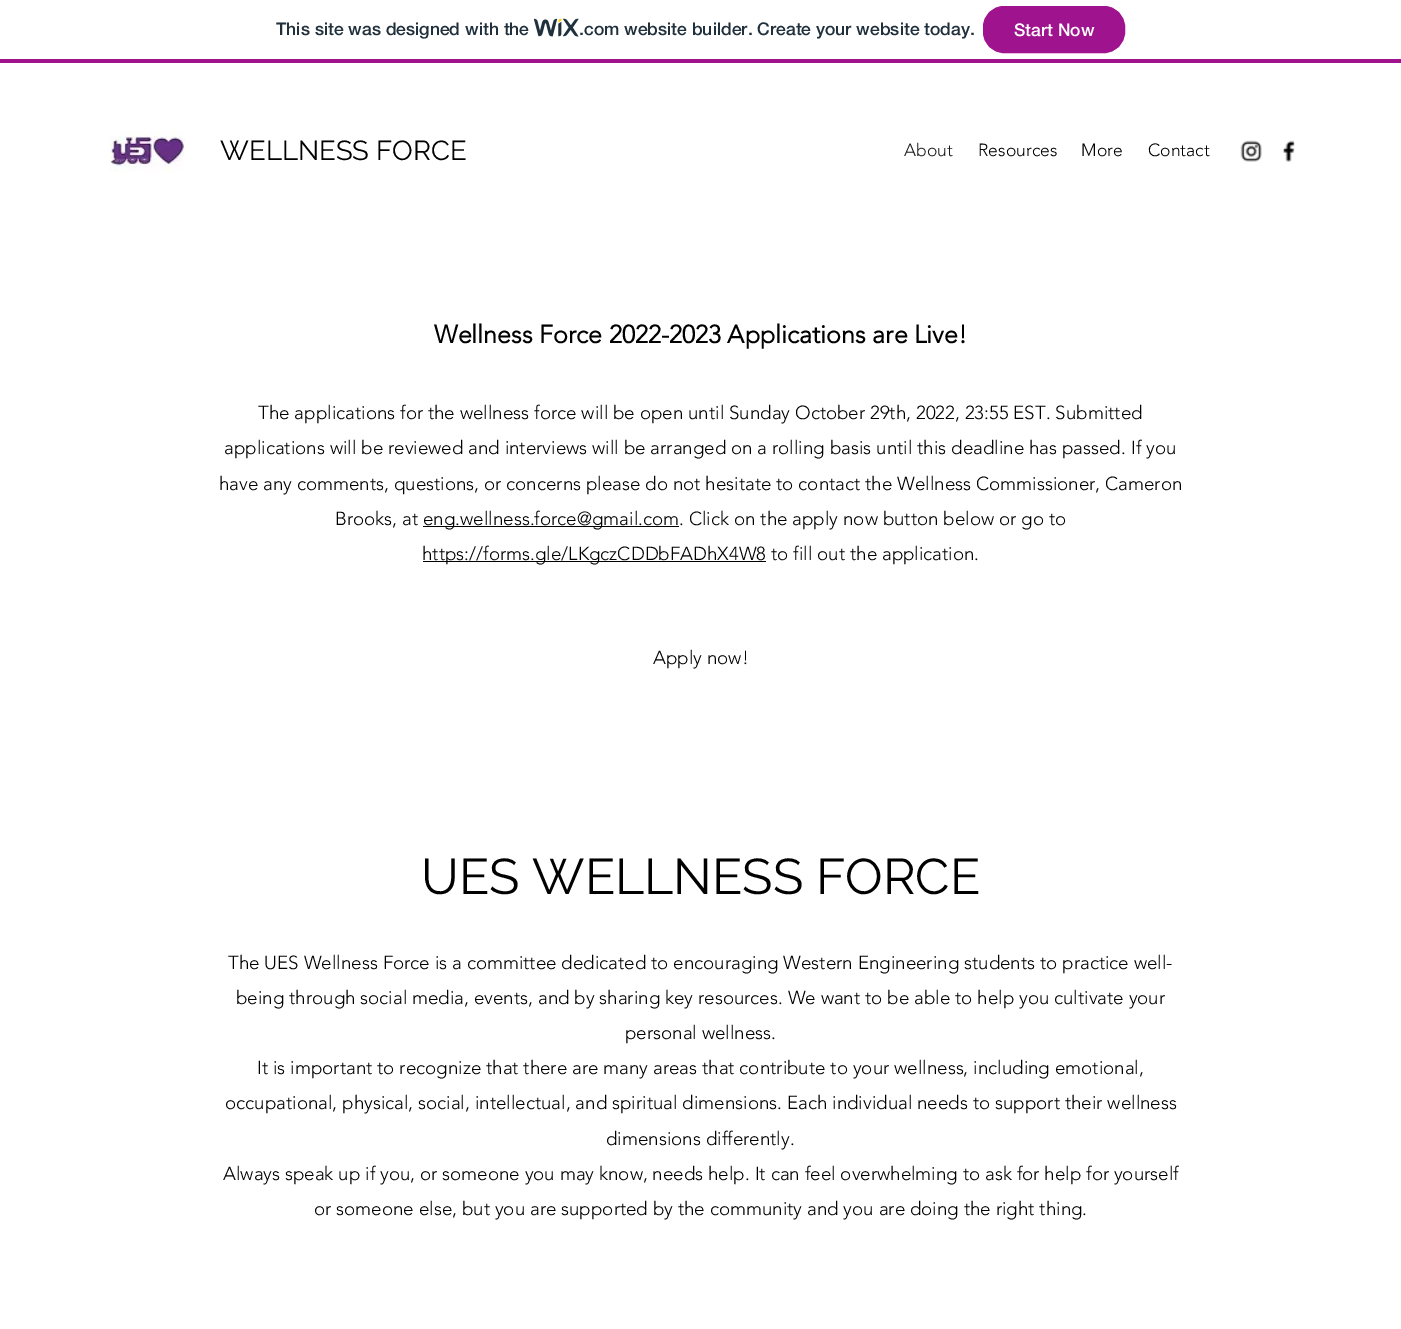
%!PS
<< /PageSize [1401 1329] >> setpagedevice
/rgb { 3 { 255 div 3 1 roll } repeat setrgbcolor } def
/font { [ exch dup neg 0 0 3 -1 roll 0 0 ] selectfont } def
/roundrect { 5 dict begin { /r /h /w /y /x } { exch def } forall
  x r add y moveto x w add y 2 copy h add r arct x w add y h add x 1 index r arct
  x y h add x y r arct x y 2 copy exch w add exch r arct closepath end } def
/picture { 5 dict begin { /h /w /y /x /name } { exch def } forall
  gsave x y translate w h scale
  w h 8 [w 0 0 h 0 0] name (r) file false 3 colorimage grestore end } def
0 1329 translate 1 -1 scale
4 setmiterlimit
255 255 255 rgb
0 0 1401 1329 rectfill
160 19 142 rgb
0 59 1401 4 rectfill
(img/1.rgb) 534 18 45 19 picture
983.5 6.5 141 46 20.5 roundrect gsave fill grestore
stroke
(img/2.rgb) 109 131 76 41 picture
(img/3.rgb) 1240 140 22 22 picture
(img/4.rgb) 1283 140 12 22 picture
0 0 0 rgb
423 526 256 1 rectfill
423 561 343 1 rectfill
/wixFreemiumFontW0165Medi-Medium 17.5 font
32 48 60 rgb
276 35 moveto (This site was designed with the) show
579 35 moveto (.com website builder. Create your website today.) show
255 255 255 rgb
1014 36 moveto (Start Now) show
/Raleway-Regular 27.5 font
0 0 0 rgb
220 160 moveto (WELLNESS FORCE) show
/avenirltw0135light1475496-Light 17.5 font
25 25 25 rgb
904 156 moveto (About) show
0 0 0 rgb
[
  [(Resources) 978 156]
  [(More) 1081 156]
  [(Contact) 1148 156]
] { aload pop moveto show } forall
/avenirltw0135light1475496-Bold 25 font
434 343 moveto (Wellness Force 2022-2023 Applications are Live!) show
/avenirltw0135light1475496-Light 18.75 font
[
  [(The applications for the wellness force will be open until Sunday October 29th, 2022, 23:55 EST. Submitted) 258 419]
  [(applications will be reviewed and interviews will be arranged on a rolling basis until this deadline has passed. If you) 224 454]
  [(have any comments, questions, or concerns please do not hesitate to contact the Wellness Commissioner, Cameron) 219 490]
  [(Brooks, at) 335 525]
  [(eng.wellness.force@gmail.com. Click on the apply now button below or go to) 423 525]
  [(https://forms.gle/LKgczCDDbFADhX4W8 to fill out the application.) 422 560]
  [(Apply now!) 653 664]
] { aload pop moveto show } forall
/Raleway-Regular 50 font
421 894 moveto (UES WELLNESS FORCE) show
/avenirltw0135light1475496-Light 18.75 font
[
  [(The UES Wellness Force is a committee dedicated to encouraging Western Engineering students to practice well-) 228 969]
  [(being through social media, events, and by sharing key resources. We want to be able to help you cultivate your) 236 1004]
  [(personal wellness.) 625 1039]
  [(It is important to recognize that there are many areas that contribute to your wellness, including emotional,) 257 1074]
  [(occupational, physical, social, intellectual, and spiritual dimensions. Each individual needs to support their wellness) 225 1109]
  [(dimensions differently.) 606 1145]
  [(Always speak up if you, or someone you may know, needs help. It can feel overwhelming to ask for help for yourself) 223 1180]
  [(or someone else, but you are supported by the community and you are doing the right thing.) 314 1215]
] { aload pop moveto show } forall
showpage
